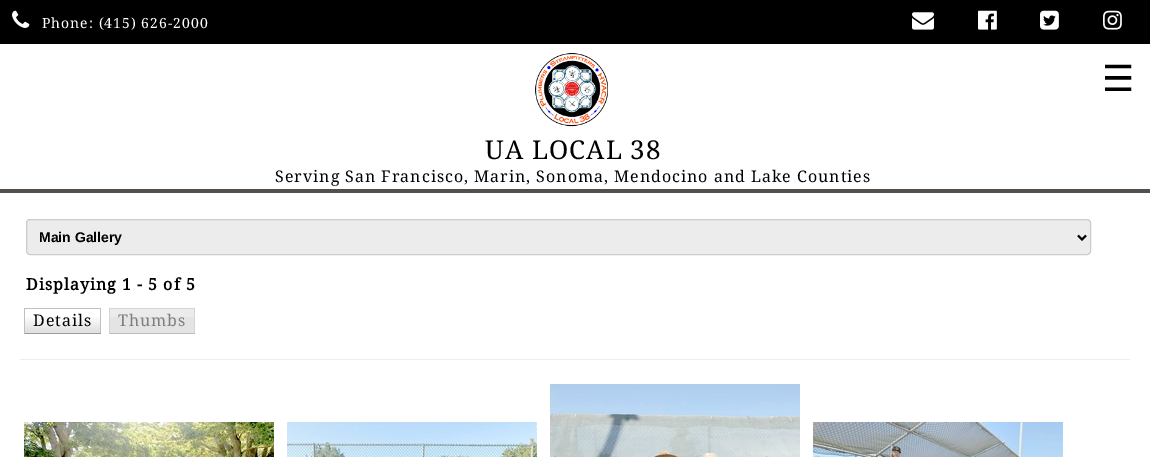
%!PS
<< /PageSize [1150 457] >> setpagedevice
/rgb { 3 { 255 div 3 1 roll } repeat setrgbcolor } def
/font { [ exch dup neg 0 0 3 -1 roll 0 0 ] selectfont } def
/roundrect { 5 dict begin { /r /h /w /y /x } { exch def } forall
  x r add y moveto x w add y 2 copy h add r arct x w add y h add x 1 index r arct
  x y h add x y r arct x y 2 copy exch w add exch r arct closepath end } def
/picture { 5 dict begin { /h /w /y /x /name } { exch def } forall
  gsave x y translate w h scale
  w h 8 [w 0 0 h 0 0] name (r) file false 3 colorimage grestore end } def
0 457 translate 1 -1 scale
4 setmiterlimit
255 255 255 rgb
0 0 1150 457 rectfill
83 79 77 rgb
0 189 1150 4 rectfill
0 0 0 rgb
0 0 1150 44 rectfill
(img/1.rgb) 12 10 18 18 picture
(img/2.rgb) 912 12 22 18 picture
(img/3.rgb) 978 10 19 20 picture
(img/4.rgb) 1040 10 19 20 picture
(img/5.rgb) 1103 10 19 20 picture
(img/6.rgb) 535 52 74 75 picture
236 236 236 rgb
26.5 219.5 1064 35 3.5 roundrect gsave fill grestore
204 204 204 rgb
stroke
0 0 0 rgb
2 setlinewidth
1078 235.5 moveto 1082 239.5 lineto 1086 235.5 lineto stroke
(img/7.rgb) 25 317 75 16 picture
[
  [24 308 77 1 192 192 192]
  [100 308 1 26 192 192 192]
  [24 333 77 1 155 155 155]
  [24 308 1 26 192 192 192]
  [110 317 84 16 228 228 228]
  [109 309 86 8 235 235 235]
  [109 308 86 1 213 213 213]
  [194 308 1 26 213 213 213]
  [109 333 86 1 189 189 189]
  [109 308 1 26 213 213 213]
  [20 359 1110 1 238 238 238]
] { aload pop rgb rectfill } forall
(img/8.rgb) 24 422 250 35 picture
(img/9.rgb) 287 422 250 35 picture
(img/10.rgb) 550 384 250 73 picture
(img/11.rgb) 813 422 250 35 picture
/DroidSerif-Regular 14 font
255 255 255 rgb
42 28 moveto 1 0 (Phone: \(415\) 626-2000) ashow
/DejaVuSans-Regular 36 font
0 0 0 rgb
1102 91 moveto (☰) show
/DroidSerif-Regular 26 font
485 159 moveto 1 0 (UA LOCAL 38) ashow
/DroidSerif-Regular 16 font
275 182 moveto 1 0 (Serving San Francisco, Marin, Sonoma, Mendocino and Lake Counties) ashow
/LiberationSans-Bold 14 font
39 242 moveto (Main Gallery) show
/DroidSerif-Bold 16 font
26 290 moveto 1 0 (Displaying 1 - 5 of 5) ashow
/DroidSerif-Regular 16 font
33 326 moveto 1 0 (Details) ashow
127 127 127 rgb
118 326 moveto 1 0 (Thumbs) ashow
showpage
